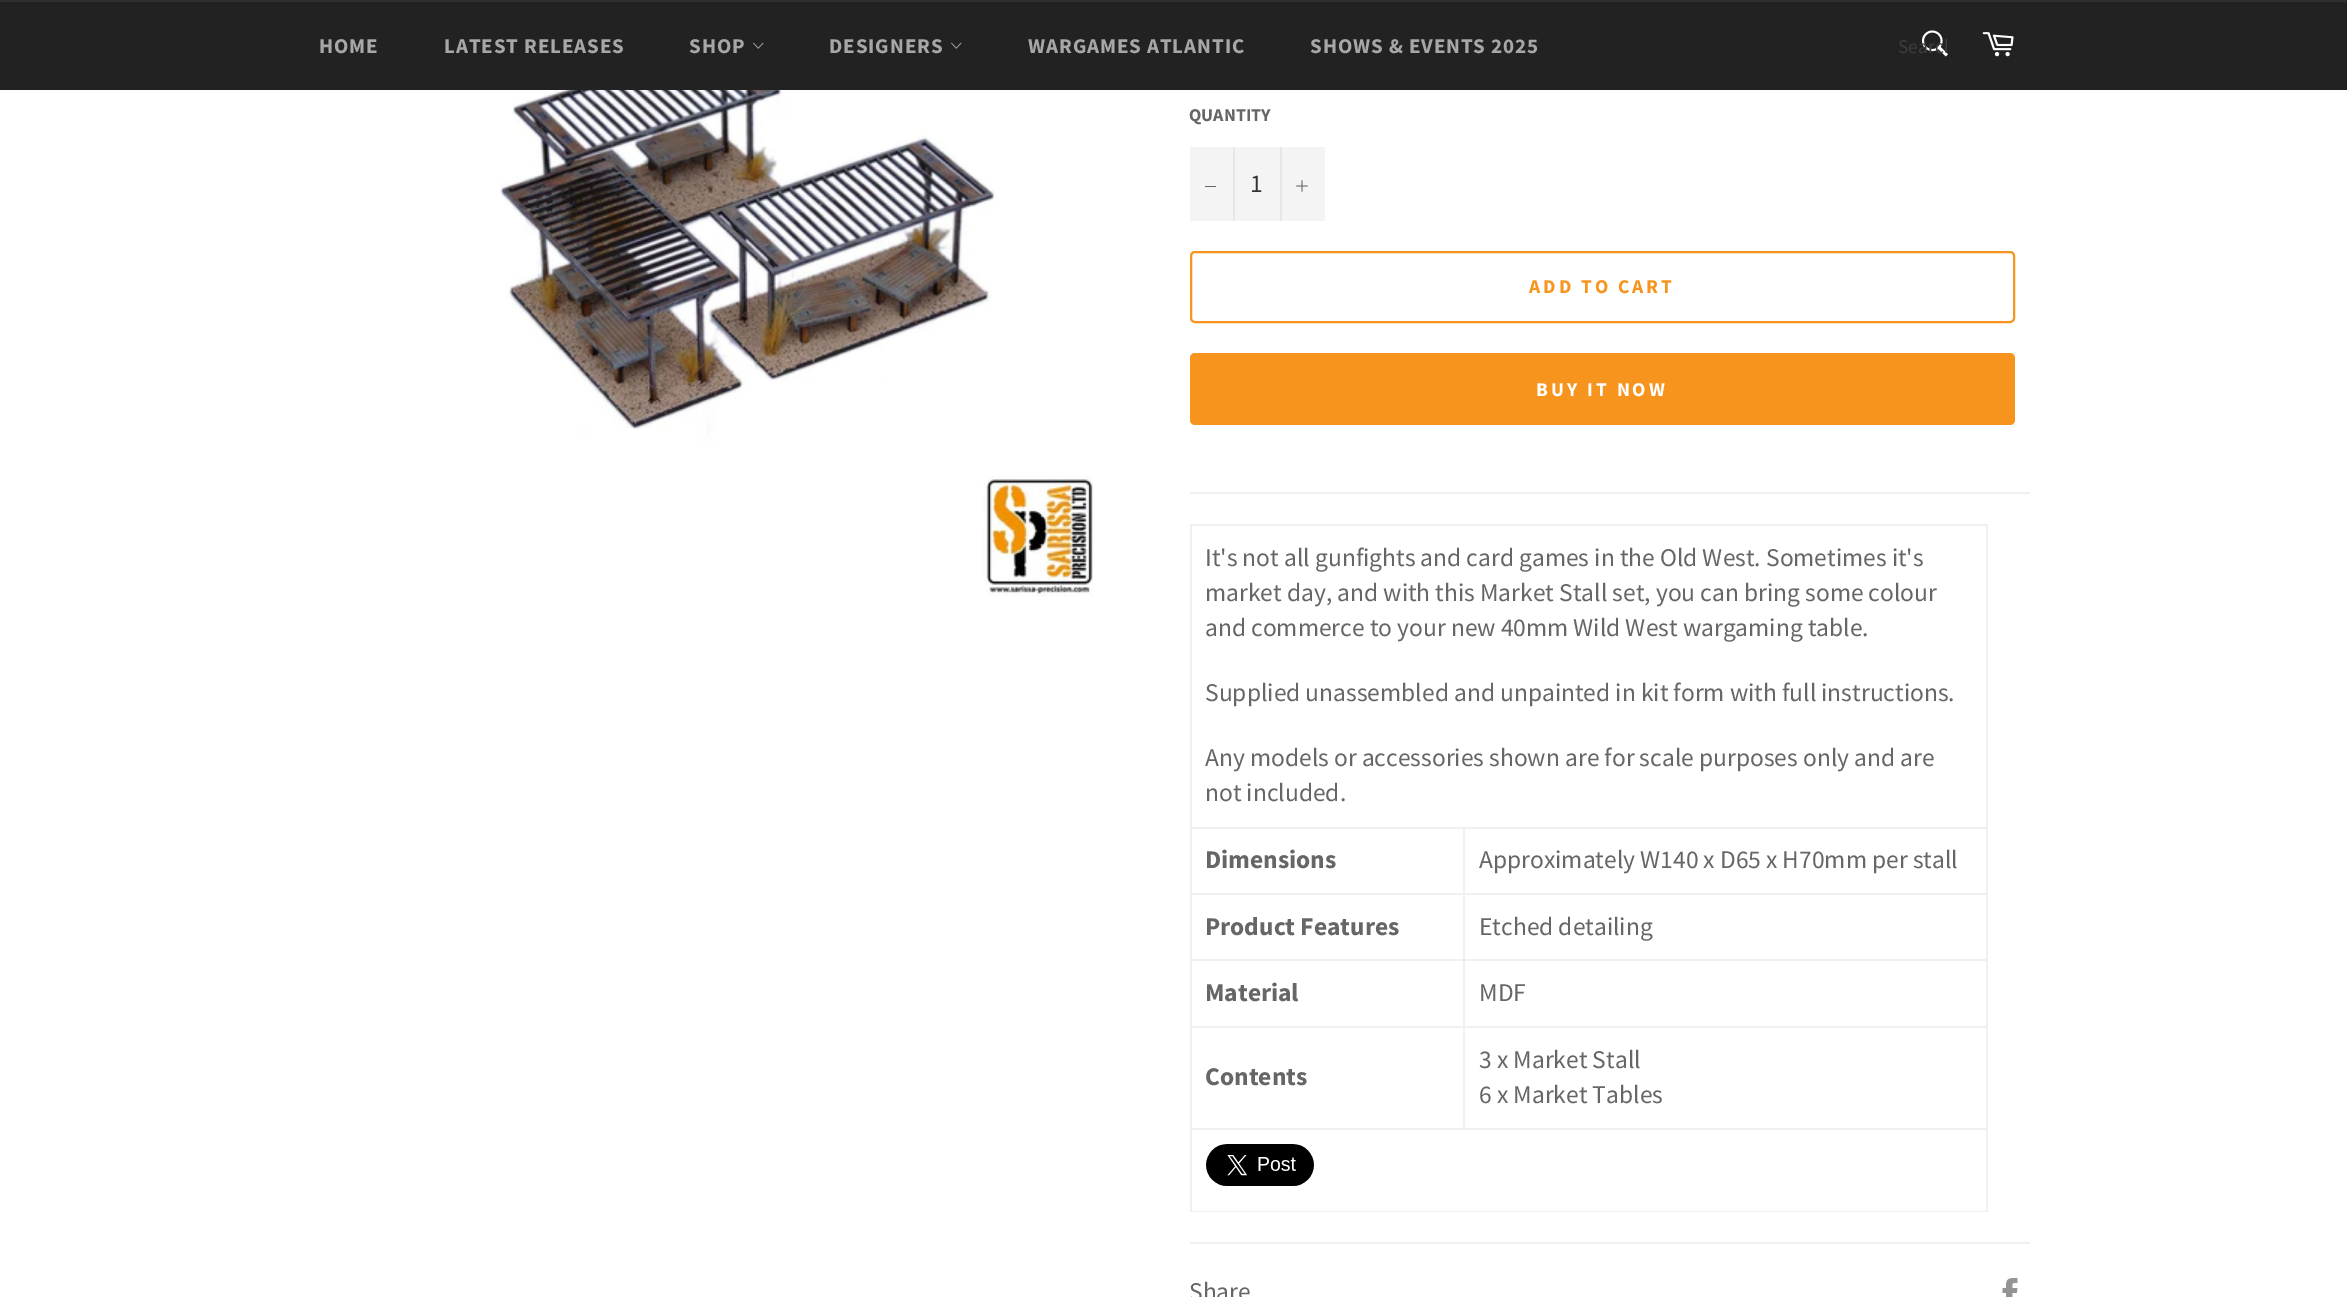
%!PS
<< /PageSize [2347 1297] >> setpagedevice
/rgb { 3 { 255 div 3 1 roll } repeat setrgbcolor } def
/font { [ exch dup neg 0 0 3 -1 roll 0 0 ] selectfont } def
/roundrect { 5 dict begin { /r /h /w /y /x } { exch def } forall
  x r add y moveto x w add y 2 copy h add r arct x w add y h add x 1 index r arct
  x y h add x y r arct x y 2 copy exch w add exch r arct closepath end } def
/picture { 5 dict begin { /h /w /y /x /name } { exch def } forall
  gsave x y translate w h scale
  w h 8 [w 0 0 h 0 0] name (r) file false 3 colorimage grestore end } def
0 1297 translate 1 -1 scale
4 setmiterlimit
255 255 255 rgb
0 0 2347 1297 rectfill
34 34 34 rgb
0 2 2347 88 rectfill
47 47 47 rgb
0 0 2347 2 rectfill
(img/1.rgb) 753 42 11 7 picture
(img/1.rgb) 951 42 11 7 picture
(img/2.rgb) 1921 30 27 27 picture
(img/3.rgb) 1982 32 32 25 picture
(img/4.rgb) 500 90 593 507 picture
[
  [1190 147 135 74 244 244 244]
  [1233 147 2 74 231 231 231]
  [1205 186 11 1 102 102 102]
  [1280 147 2 74 231 231 231]
] { aload pop rgb rectfill } forall
(img/5.rgb) 1296 180 12 12 picture
247 148 29 rgb
2 setlinewidth
1191 252 823 70 4 roundrect stroke
1190 353 825 72 5 roundrect fill
[
  [1190 492 840 2 240 240 240]
  [1190 524 798 2 240 240 240]
  [1463 827 525 2 240 240 240]
  [1463 893 525 2 240 240 240]
  [1463 959 525 2 240 240 240]
  [1463 1026 525 2 240 240 240]
  [1190 1128 798 2 240 240 240]
  [1986 1128 2 84 240 240 240]
  [1986 1026 2 104 240 240 240]
  [1986 959 2 69 240 240 240]
  [1986 893 2 67 240 240 240]
  [1986 827 2 67 240 240 240]
  [1986 524 2 304 240 240 240]
  [1463 1026 2 104 240 240 240]
  [1190 1026 274 2 240 240 240]
  [1463 959 2 69 240 240 240]
  [1190 959 274 2 240 240 240]
  [1463 893 2 67 240 240 240]
  [1190 893 274 2 240 240 240]
  [1463 827 2 67 240 240 240]
  [1190 827 274 2 240 240 240]
  [1190 1211 798 1 240 240 240]
  [1190 1128 2 84 240 240 240]
  [1190 1026 2 104 240 240 240]
  [1190 959 2 69 240 240 240]
  [1190 893 2 67 240 240 240]
  [1190 827 2 67 240 240 240]
  [1190 524 2 304 240 240 240]
] { aload pop rgb rectfill } forall
(img/6.rgb) 1206 1144 108 42 picture
1190 1242 840 2 rectfill
(img/7.rgb) 2002 1278 16 19 picture
/SourceSansPro-Bold 21 font
167 167 167 rgb
319 53 moveto 0.9 0 (HOME) ashow
444 53 moveto 0.9 0 (LATEST RELEASES) ashow
689 53 moveto 0.9 0 (SHOP) ashow
829 53 moveto 0.9 0 (DESIGNERS) ashow
1028 53 moveto 0.9 0 (WARGAMES ATLANTIC) ashow
1310 53 moveto 0.9 0 (SHOWS & EVENTS 2025) ashow
gsave
1899 33 48 26 rectclip
/SourceSansPro-Regular 19.5 font
61 61 61 rgb
1898 53 moveto (Search) show
grestore
/SourceSansPro-Bold 18 font
102 102 102 rgb
1189 121 moveto (QUANTITY) show
/SourceSansPro-Regular 25.5 font
51 51 51 rgb
1250 192 moveto (1) show
/SourceSansPro-Bold 19.5 font
247 148 29 rgb
1529 293 moveto 3 0 (ADD TO CART) ashow
255 255 255 rgb
1536 396 moveto 3 0 (BUY IT NOW) ashow
/SourceSansPro-Regular 25.5 font
102 102 102 rgb
[
  [(It's not all gunfights and card games in the Old West. Sometimes it's) 1205 566]
  [(market day, and with this Market Stall set, you can bring some colour) 1205 601]
  [(and commerce to your new 40mm Wild West wargaming table.) 1205 636]
  [(Supplied unassembled and unpainted in kit form with full instructions.) 1205 701]
  [(Any models or accessories shown are for scale purposes only and are) 1205 766]
  [(not included.) 1205 801]
] { aload pop moveto show } forall
/SourceSansPro-Bold 25.5 font
1205 868 moveto (Dimensions) show
/SourceSansPro-Regular 25.5 font
1479 868 moveto (Approximately W140 x D65 x H70mm per stall) show
/SourceSansPro-Bold 25.5 font
1205 935 moveto (Product Features) show
/SourceSansPro-Regular 25.5 font
1479 935 moveto (Etched detailing) show
/SourceSansPro-Bold 25.5 font
1205 1001 moveto (Material) show
/SourceSansPro-Regular 25.5 font
1479 1001 moveto (MDF) show
/SourceSansPro-Bold 25.5 font
1205 1085 moveto (Contents) show
/SourceSansPro-Regular 25.5 font
[
  [(3 x Market Stall) 1479 1068]
  [(6 x Market Tables) 1479 1103]
  [(Share) 1189 1300]
] { aload pop moveto show } forall
showpage
